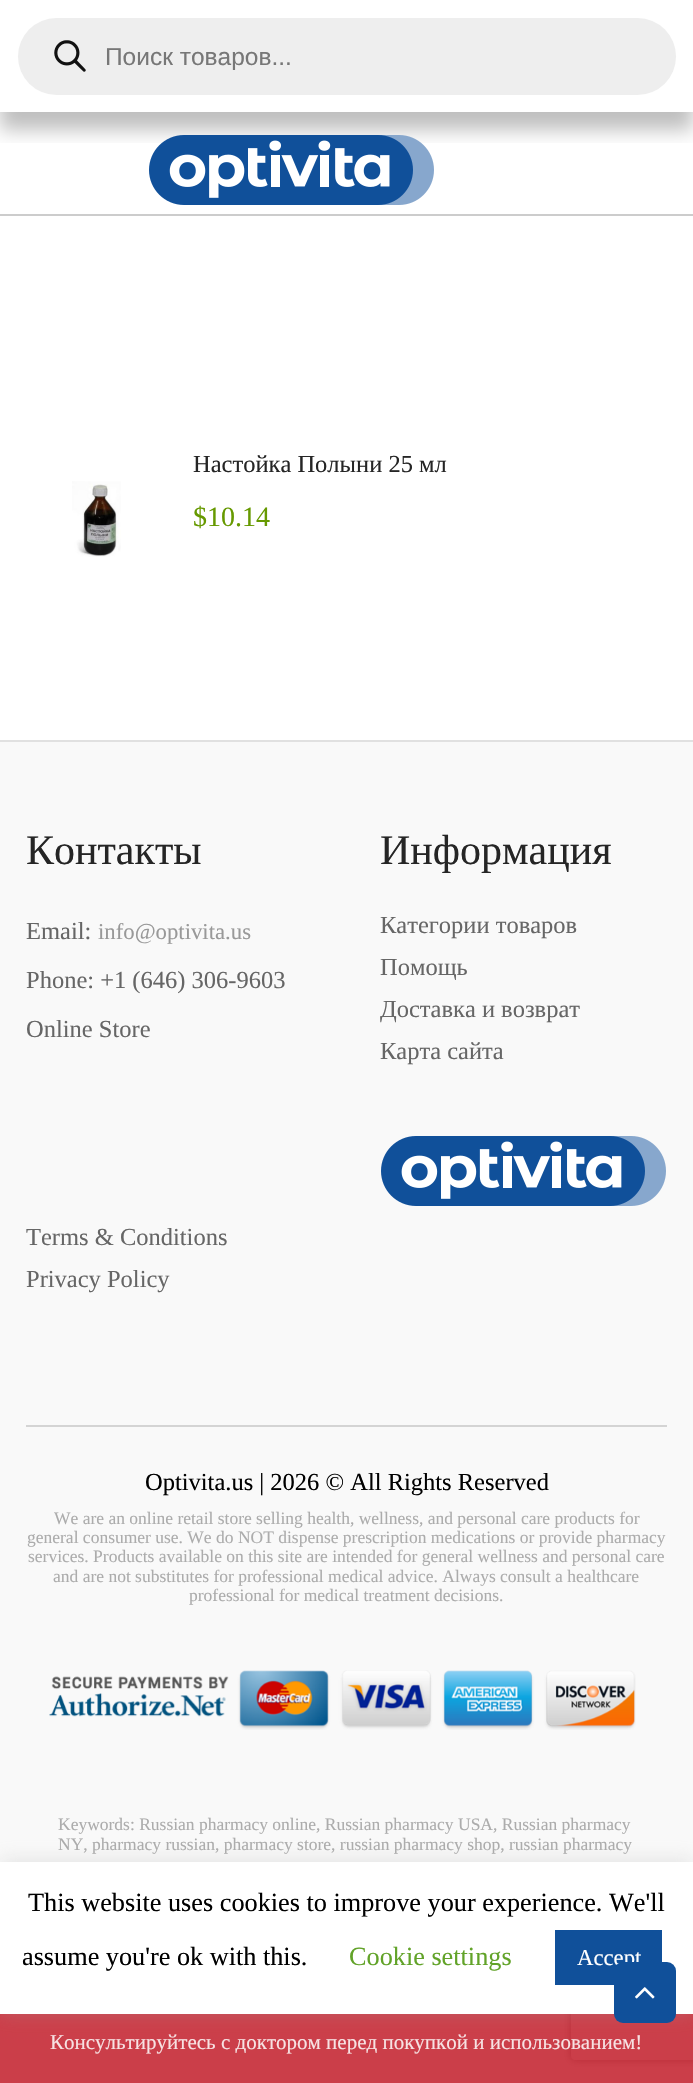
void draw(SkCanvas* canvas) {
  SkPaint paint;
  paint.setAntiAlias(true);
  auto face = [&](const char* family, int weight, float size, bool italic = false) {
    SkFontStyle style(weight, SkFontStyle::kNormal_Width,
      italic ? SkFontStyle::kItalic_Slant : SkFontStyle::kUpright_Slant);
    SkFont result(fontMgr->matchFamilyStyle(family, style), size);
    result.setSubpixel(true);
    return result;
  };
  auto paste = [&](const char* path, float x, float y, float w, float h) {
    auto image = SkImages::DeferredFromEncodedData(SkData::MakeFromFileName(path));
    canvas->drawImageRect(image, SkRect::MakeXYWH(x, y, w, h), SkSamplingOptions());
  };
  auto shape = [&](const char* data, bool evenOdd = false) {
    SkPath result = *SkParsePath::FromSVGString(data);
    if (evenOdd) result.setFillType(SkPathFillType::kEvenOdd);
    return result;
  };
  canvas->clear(0xffffffff);
  paint.setColor(0xffcccccc);
  canvas->drawRect(SkRect::MakeXYWH(0, 214, 693, 2), paint);
  canvas->save();
  canvas->clipRect(SkRect::MakeXYWH(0, 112, 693, 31));
  paint.setColor(0x40000000);
  paint.setMaskFilter(SkMaskFilter::MakeBlur(kNormal_SkBlurStyle, 9));
  canvas->drawRect(SkRect::MakeXYWH(0, 18, 693, 112), paint);
  paint.setMaskFilter(nullptr);
  canvas->restore();
  paint.setColor(0xffeeeeee);
  canvas->drawRoundRect(SkRect::MakeXYWH(18, 18, 658, 77), 38.5f, 38.5f, paint);
  paste("img/1.png", 54, 40, 32, 32);
  paste("img/2.png", 149, 135, 285, 70);
  paste("img/3.png", 72, 481, 49, 76);
  paint.setColor(0xfff9f9f9);
  canvas->drawRect(SkRect::MakeXYWH(0, 742, 693, 1120), paint);
  paint.setColor(0xffe1e1e1);
  canvas->drawRect(SkRect::MakeXYWH(0, 740, 693, 2), paint);
  paste("img/4.png", 381, 1136, 285, 70);
  paint.setColor(0xffd4d4d4);
  canvas->drawRect(SkRect::MakeXYWH(26, 1425, 641, 2), paint);
  paste("img/5.png", 49, 1670, 587, 60);
  canvas->save();
  canvas->clipPath(shape("M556 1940H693V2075H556ZM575 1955H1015C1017 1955 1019 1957 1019 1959V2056C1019 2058 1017 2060 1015 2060H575C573 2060 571 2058 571 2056V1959C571 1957 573 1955 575 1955Z", true), true);
  paint.setColor(0xff808080);
  paint.setMaskFilter(SkMaskFilter::MakeBlur(kNormal_SkBlurStyle, 4.5f));
  canvas->drawRoundRect(SkRect::MakeXYWH(571, 1955, 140, 105), 4, 4, paint);
  paint.setMaskFilter(nullptr);
  canvas->restore();
  paint.setColor(0xd9c21c29);
  canvas->drawRect(SkRect::MakeXYWH(0, 2014, 693, 69), paint);
  paint.setColor(0x4dacabab);
  paint.setMaskFilter(SkMaskFilter::MakeBlur(kNormal_SkBlurStyle, 9));
  canvas->drawRect(SkRect::MakeXYWH(0, 1860, 693, 153), paint);
  paint.setMaskFilter(nullptr);
  paint.setColor(0xffffffff);
  canvas->drawRect(SkRect::MakeXYWH(0, 1862, 693, 152), paint);
  paint.setColor(0xff10509a);
  canvas->drawRect(SkRect::MakeXYWH(555, 1930, 107, 55), paint);
  auto f0 = face("Liberation Sans", 400, 24.5f);
  paint.setColor(0xff777777);
  canvas->drawString("Поиск товаров...", 105, 65, f0, paint);
  auto f1 = face("Liberation Serif", 400, 24.5f);
  paint.setColor(0xff252525);
  canvas->drawString("Настойка Полыни 25 мл", 193, 472, f1, paint);
  auto f2 = face("Liberation Serif", 400, 28);
  paint.setColor(0xff669900);
  canvas->drawString("$10.14", 193, 526, f2, paint);
  auto f3 = face("Liberation Serif", 400, 42);
  paint.setColor(0xff252525);
  canvas->drawString("Контакты", 26, 864, f3, paint);
  paint.setColor(0xff666666);
  canvas->drawString("Email:", 26, 939, f1, paint);
  auto f4 = face("Liberation Serif", 400, 22.75f);
  paint.setColor(0xff999999);
  canvas->drawString("info@optivita.us", 98, 939, f4, paint);
  paint.setColor(0xff666666);
  canvas->drawString("Phone: +1 (646) 306-9603", 26, 988, f1, paint);
  canvas->drawString("Online Store", 26, 1037, f1, paint);
  paint.setColor(0xff252525);
  canvas->drawString("Информация", 380, 864, f3, paint);
  paint.setColor(0xff666666);
  {
    const struct { const char* s; float x, y; } items[] = {
      {"Категории товаров", 380, 933},
      {"Помощь", 380, 975},
      {"Доставка и возврат", 380, 1017},
      {"Карта сайта", 380, 1059},
      {"Terms & Conditions", 26, 1245},
      {"Privacy Policy", 26, 1287},
    };
    for (auto [s, x, y] : items) {
      canvas->drawString(s, x, y, f1, paint);
    }
  }
  paint.setColor(0xff000000);
  canvas->drawString("Optivita.us | 2026 © All Rights Reserved", 145, 1490, f1, paint);
  auto f5 = face("Liberation Serif", 400, 17.5f);
  paint.setColor(0xffacacac);
  {
    const struct { const char* s; float x, y; } items[] = {
      {"We are an online retail store selling health, wellness, and personal care products for", 54, 1524},
      {"general consumer use. We do NOT dispense prescription medications or provide pharmacy", 27, 1543},
      {"services. Products available on this site are intended for general wellness and personal care", 28, 1562},
      {"and are not substitutes for professional medical advice. Always consult a healthcare", 53, 1582},
      {"professional for medical treatment decisions.", 189, 1601},
      {"Keywords: Russian pharmacy online, Russian pharmacy USA, Russian pharmacy", 58, 1830},
      {"NY, pharmacy russian, pharmacy store, russian pharmacy shop, russian pharmacy", 58, 1850},
    };
    for (auto [s, x, y] : items) {
      canvas->drawString(s, x, y, f5, paint);
    }
  }
  auto f6 = face("Liberation Serif", 400, 21);
  paint.setColor(0xfff7e2e3);
  canvas->drawString("Консультируйтесь с доктором перед покупкой и использованием!", 50, 2049, f6, paint);
  auto f7 = face("Liberation Serif", 400, 26.25f);
  paint.setColor(0xff000000);
  canvas->drawString("This website uses cookies to improve your experience. We'll", 28, 1911, f7, paint);
  canvas->drawString("assume you're ok with this.", 22, 1965, f7, paint);
  paint.setColor(0xff62a329);
  canvas->drawString("Cookie settings", 349, 1965, f7, paint);
  paint.setColor(0xffffffff);
  canvas->drawString("Accept", 577, 1965, f4, paint);
  paint.setColor(0xff10509a);
  canvas->drawRoundRect(SkRect::MakeXYWH(614, 1962, 62, 61), 9, 9, paint);
  paste("img/6.png", 635, 1987, 20, 12);
}
